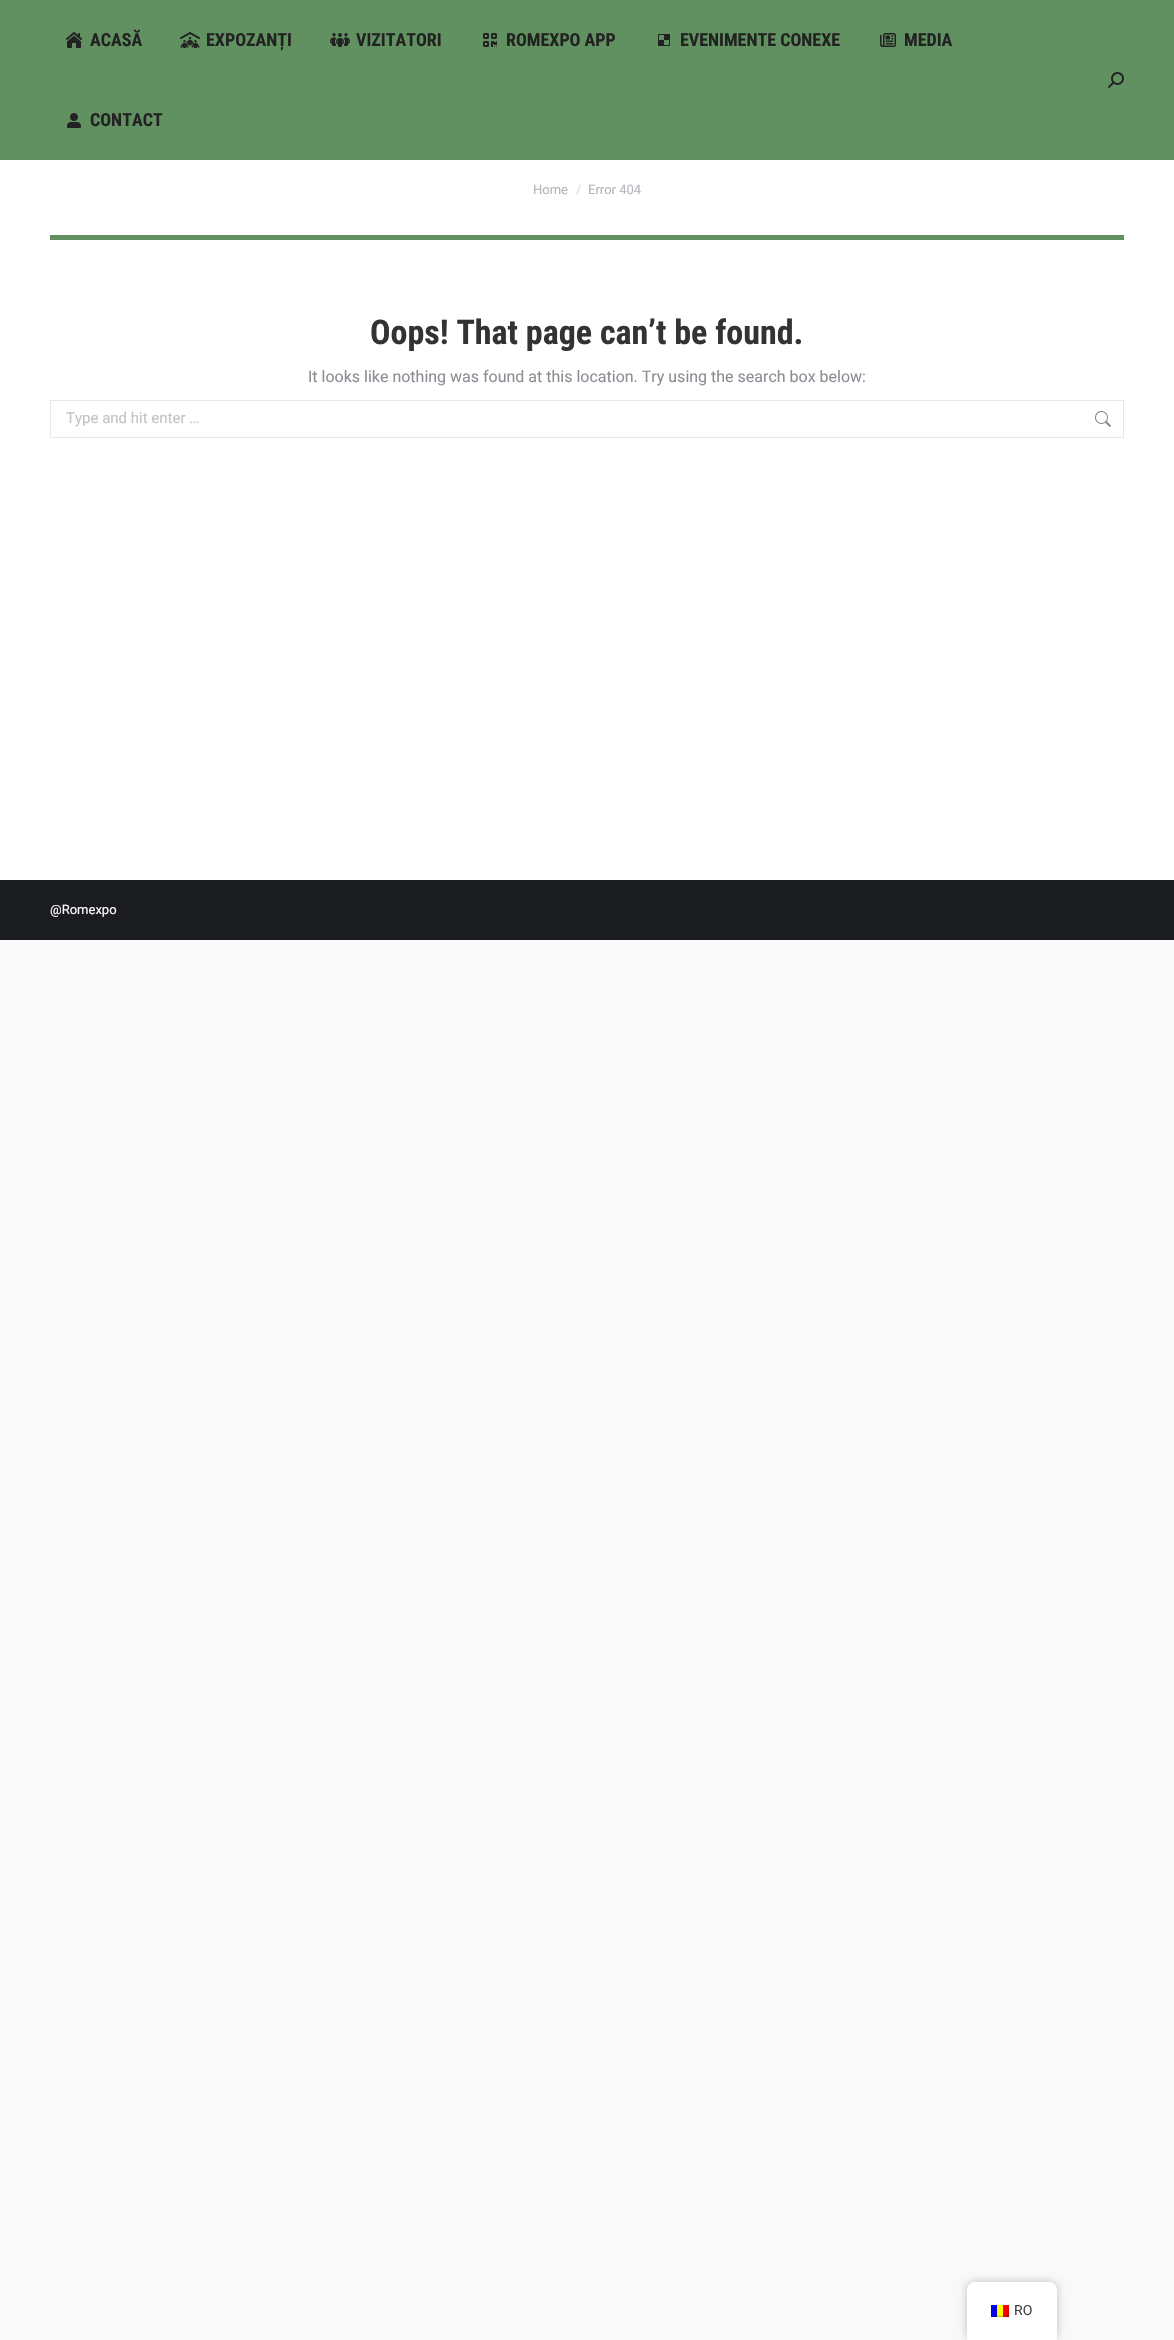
void draw(SkCanvas* canvas) {
  SkPaint paint;
  paint.setAntiAlias(true);
  auto face = [&](const char* family, int weight, float size, bool italic = false) {
    SkFontStyle style(weight, SkFontStyle::kNormal_Width,
      italic ? SkFontStyle::kItalic_Slant : SkFontStyle::kUpright_Slant);
    SkFont result(fontMgr->matchFamilyStyle(family, style), size);
    result.setSubpixel(true);
    return result;
  };
  auto paste = [&](const char* path, float x, float y, float w, float h) {
    auto image = SkImages::DeferredFromEncodedData(SkData::MakeFromFileName(path));
    canvas->drawImageRect(image, SkRect::MakeXYWH(x, y, w, h), SkSamplingOptions());
  };
  auto shape = [&](const char* data, bool evenOdd = false) {
    SkPath result = *SkParsePath::FromSVGString(data);
    if (evenOdd) result.setFillType(SkPathFillType::kEvenOdd);
    return result;
  };
  canvas->clear(0xfff9f9f9);
  paint.setColor(0xffffffff);
  canvas->drawRect(SkRect::MakeXYWH(0, 160, 1174, 720), paint);
  paint.setColor(0xff619160);
  canvas->drawRect(SkRect::MakeXYWH(0, 0, 1174, 160), paint);
  paste("img/1.png", 66, 32, 16, 16);
  paste("img/2.png", 180, 32, 20, 16);
  paste("img/3.png", 330, 33, 20, 14);
  paste("img/4.png", 483, 33, 14, 14);
  paste("img/5.png", 658, 34, 12, 12);
  paste("img/6.png", 880, 33, 16, 14);
  paste("img/7.png", 67, 113, 14, 15);
  paste("img/8.png", 1108, 72, 16, 16);
  canvas->drawRect(SkRect::MakeXYWH(50, 235, 1074, 5), paint);
  paint.setStroke(true);
  paint.setStrokeWidth(1);
  paint.setColor(0xffe7e7e7);
  canvas->drawRect(SkRect::MakeXYWH(50.5f, 400.5f, 1073, 37), paint);
  paste("img/9.png", 1095, 411, 16, 16);
  paint.setStroke(false);
  paint.setColor(0xff1a1c20);
  canvas->drawRect(SkRect::MakeXYWH(0, 880, 1174, 60), paint);
  paint.setColor(0x40000000);
  paint.setMaskFilter(SkMaskFilter::MakeBlur(kNormal_SkBlurStyle, 4));
  canvas->drawRoundRect(SkRect::MakeXYWH(967, 2282, 90, 58), 8, 8, paint);
  paint.setMaskFilter(nullptr);
  paint.setColor(0xffffffff);
  canvas->drawPath(shape("M975 2282H1049C1053.5 2282 1057 2285.5 1057 2290V2340H967V2290C967 2285.5 970.5 2282 975 2282Z"), paint);
  paste("img/10.png", 991, 2305, 18, 12);
  auto f0 = face("Roboto Condensed", 700, 18);
  paint.setColor(0xff222222);
  {
    const struct { const char* s; float x, y; } items[] = {
      {"ACASĂ", 90, 46},
      {"EXPOZANȚI", 206, 46},
      {"VIZITATORI", 356, 46},
      {"ROMEXPO APP", 506, 46},
      {"EVENIMENTE CONEXE", 680, 46},
      {"MEDIA", 904, 46},
      {"CONTACT", 90, 126},
    };
    for (auto [s, x, y] : items) {
      canvas->drawString(s, x, y, f0, paint);
    }
  }
  auto f1 = face("Roboto", 400, 13);
  paint.setColor(0xffb4b5bb);
  canvas->drawString("Home", 533, 194, f1, paint);
  paint.setColor(0xffdadadd);
  canvas->drawString("/", 576, 194, f1, paint);
  paint.setColor(0xffb4b5bb);
  canvas->drawString("Error 404", 588, 194, f1, paint);
  auto f2 = face("Roboto Condensed", 700, 34);
  paint.setColor(0xff333333);
  canvas->drawString("Oops! That page can’t be found.", 370, 344, f2, paint);
  auto f3 = face("Roboto", 400, 16);
  paint.setColor(0xff8b8d94);
  canvas->drawString("It looks like nothing was found at this location. Try using the search box below:", 308, 382, f3, paint);
  auto f4 = face("Roboto", 400, 15);
  paint.setColor(0xffc2c3c6);
  canvas->drawString("Type and hit enter …", 66, 423, f4, paint);
  paint.setColor(0xffffffff);
  canvas->drawString("@Romexpo", 50, 914, f1, paint);
  auto f5 = face("Roboto", 400, 14);
  paint.setColor(0xff404040);
  canvas->drawString("RO", 1014, 2315, f5, paint);
}
